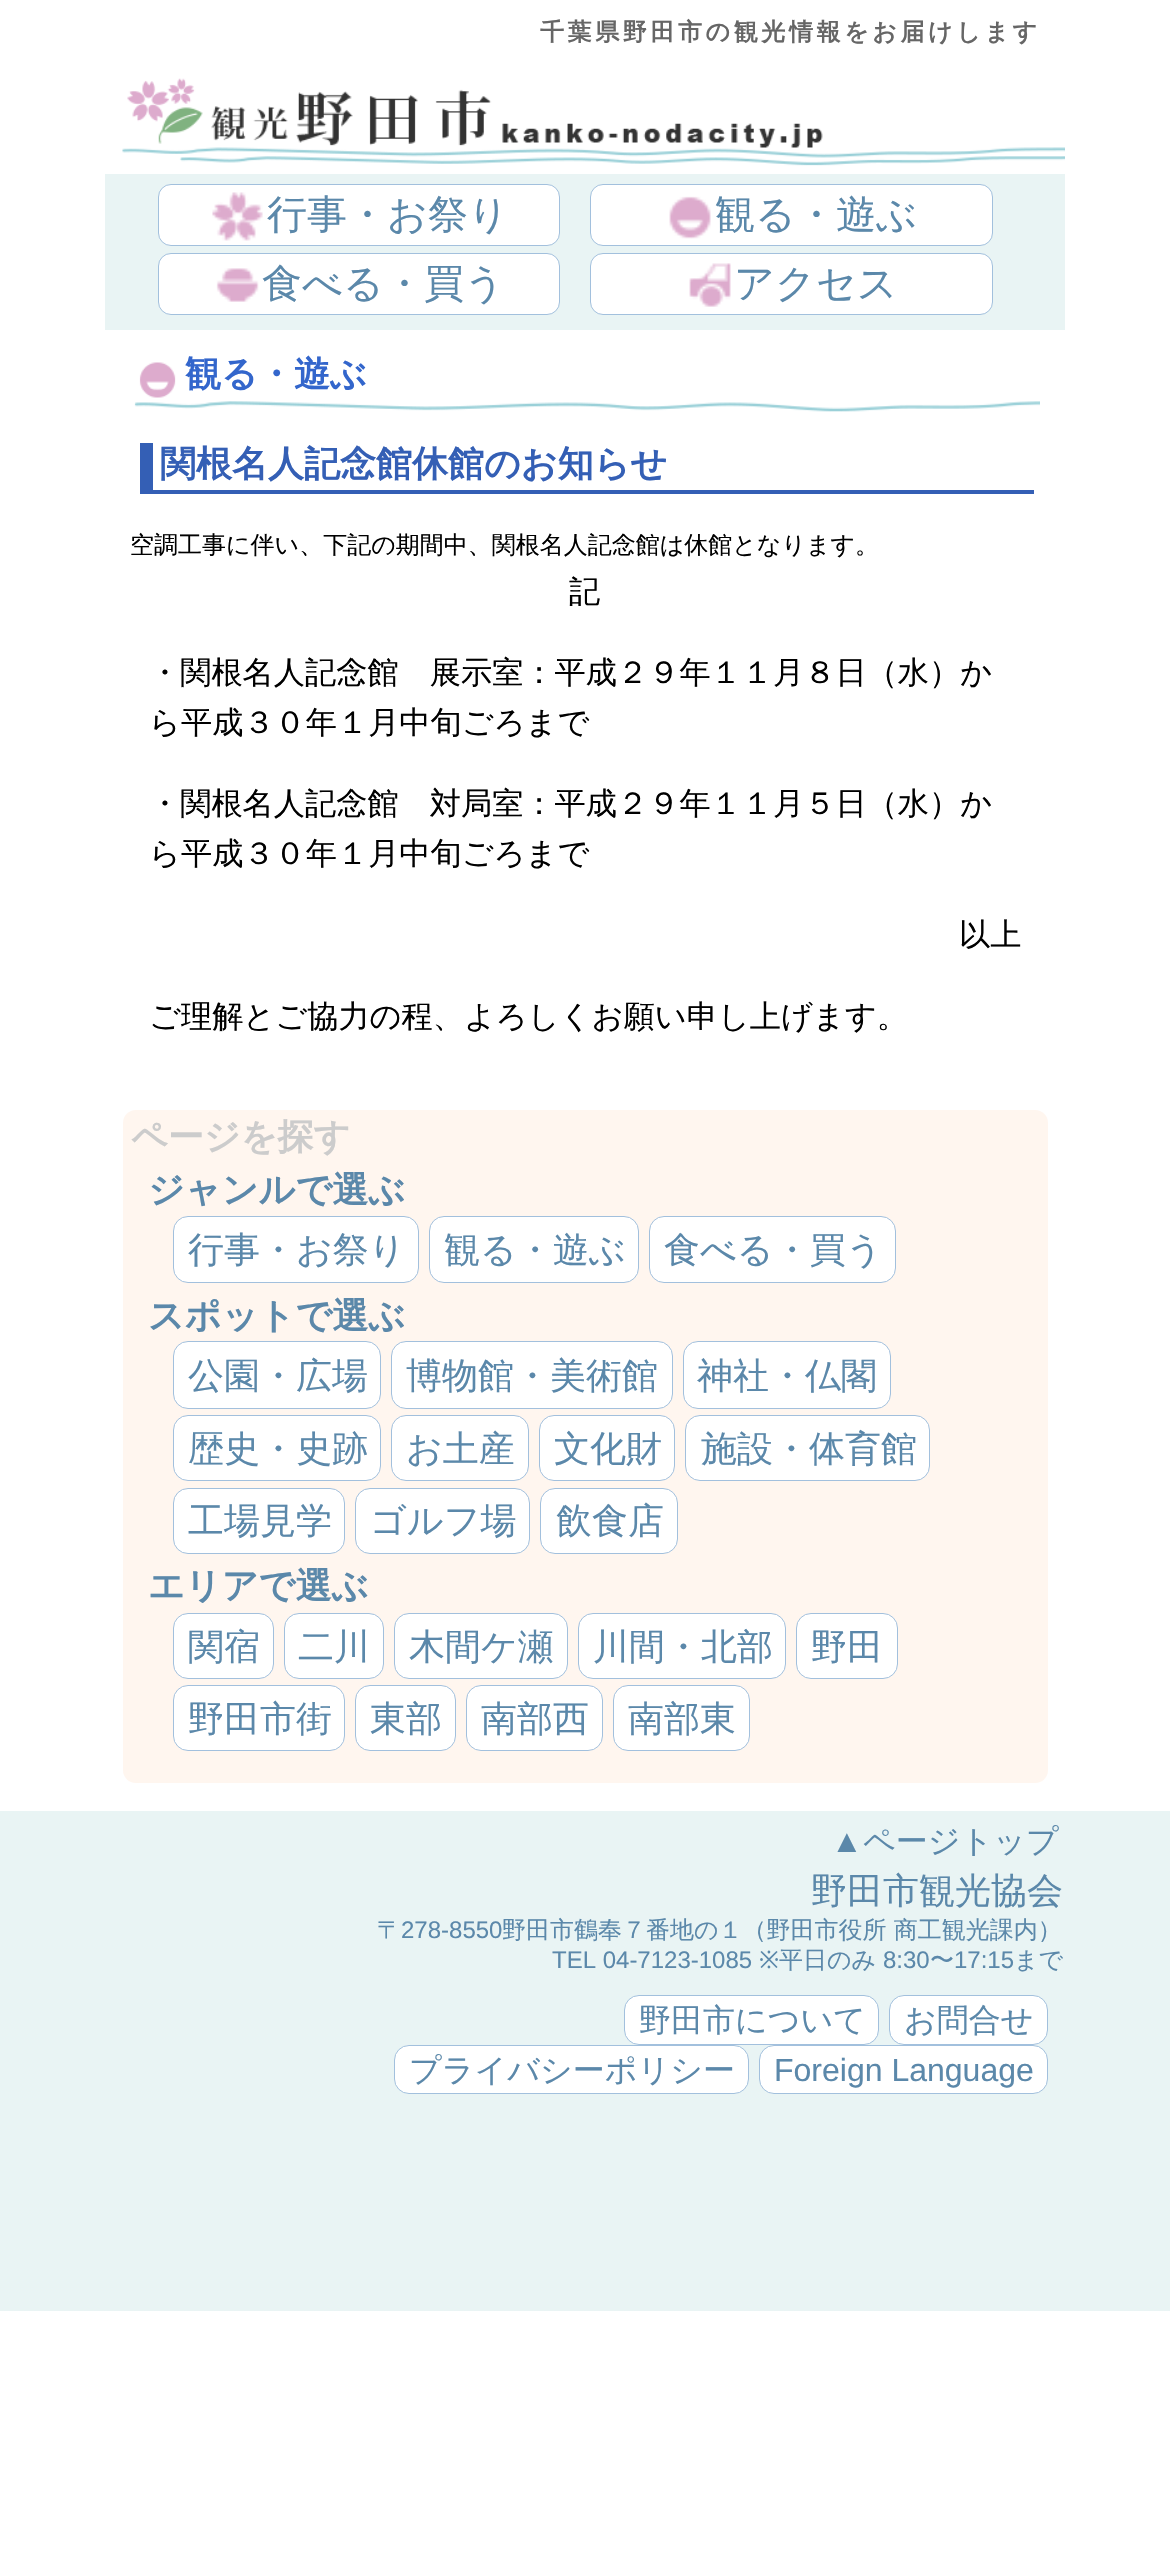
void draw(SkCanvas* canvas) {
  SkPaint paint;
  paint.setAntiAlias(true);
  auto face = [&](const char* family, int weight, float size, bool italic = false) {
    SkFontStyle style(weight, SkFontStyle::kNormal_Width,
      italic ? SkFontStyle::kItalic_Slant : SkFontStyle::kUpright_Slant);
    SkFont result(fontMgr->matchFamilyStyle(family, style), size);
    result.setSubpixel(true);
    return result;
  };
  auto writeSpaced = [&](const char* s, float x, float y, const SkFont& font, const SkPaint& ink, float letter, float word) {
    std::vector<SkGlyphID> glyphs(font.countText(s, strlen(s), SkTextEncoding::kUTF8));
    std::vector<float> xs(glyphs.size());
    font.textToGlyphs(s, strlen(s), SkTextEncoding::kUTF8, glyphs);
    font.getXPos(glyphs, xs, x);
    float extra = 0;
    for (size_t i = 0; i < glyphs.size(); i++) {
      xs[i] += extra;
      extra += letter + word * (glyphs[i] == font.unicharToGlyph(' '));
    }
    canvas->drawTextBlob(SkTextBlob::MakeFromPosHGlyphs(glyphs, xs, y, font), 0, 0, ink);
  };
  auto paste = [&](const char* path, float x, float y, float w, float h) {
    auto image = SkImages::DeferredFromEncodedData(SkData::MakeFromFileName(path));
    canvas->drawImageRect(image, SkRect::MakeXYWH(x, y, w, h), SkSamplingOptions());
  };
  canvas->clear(0xffffffff);
  paste("img/1.png", 122, 147, 943, 19);
  paste("img/2.png", 127, 78, 696, 70);
  paint.setColor(0xffe9f4f4);
  canvas->drawRect(SkRect::MakeXYWH(105, 174, 960, 156), paint);
  paint.setColor(0xffffffff);
  canvas->drawRoundRect(SkRect::MakeXYWH(158.5f, 184.5f, 401, 61), 12.5f, 12.5f, paint);
  paint.setStroke(true);
  paint.setStrokeWidth(1);
  paint.setColor(0xffa2c0dd);
  canvas->drawRoundRect(SkRect::MakeXYWH(158.5f, 184.5f, 401, 61), 12.5f, 12.5f, paint);
  paste("img/3.png", 212, 192, 51, 49);
  paint.setStroke(false);
  paint.setColor(0xffffffff);
  canvas->drawRoundRect(SkRect::MakeXYWH(590.5f, 184.5f, 402, 61), 12.5f, 12.5f, paint);
  paint.setStroke(true);
  paint.setColor(0xffa2c0dd);
  canvas->drawRoundRect(SkRect::MakeXYWH(590.5f, 184.5f, 402, 61), 12.5f, 12.5f, paint);
  paste("img/4.png", 669, 196, 42, 43);
  paint.setStroke(false);
  paint.setColor(0xffffffff);
  canvas->drawRoundRect(SkRect::MakeXYWH(158.5f, 253.5f, 401, 61), 12.5f, 12.5f, paint);
  paint.setStroke(true);
  paint.setColor(0xffa2c0dd);
  canvas->drawRoundRect(SkRect::MakeXYWH(158.5f, 253.5f, 401, 61), 12.5f, 12.5f, paint);
  paste("img/5.png", 216, 268, 43, 34);
  paint.setStroke(false);
  paint.setColor(0xffffffff);
  canvas->drawRoundRect(SkRect::MakeXYWH(590.5f, 253.5f, 402, 61), 12.5f, 12.5f, paint);
  paint.setStroke(true);
  paint.setColor(0xffa2c0dd);
  canvas->drawRoundRect(SkRect::MakeXYWH(590.5f, 253.5f, 402, 61), 12.5f, 12.5f, paint);
  paste("img/6.png", 689, 263, 42, 44);
  paste("img/7.png", 134, 362, 906, 50);
  paint.setStroke(false);
  paint.setColor(0xff345fb5);
  canvas->drawRect(SkRect::MakeXYWH(153, 490, 881, 4), paint);
  canvas->drawRect(SkRect::MakeXYWH(140, 443, 13, 51), paint);
  paint.setColor(0xfffff6ef);
  canvas->drawRoundRect(SkRect::MakeXYWH(123, 1110, 925, 673), 13, 13, paint);
  paint.setColor(0xffffffff);
  canvas->drawRoundRect(SkRect::MakeXYWH(173.5f, 1216.5f, 245, 66), 14.5f, 14.5f, paint);
  paint.setStroke(true);
  paint.setColor(0xffa2c0dd);
  canvas->drawRoundRect(SkRect::MakeXYWH(173.5f, 1216.5f, 245, 66), 14.5f, 14.5f, paint);
  paint.setStroke(false);
  paint.setColor(0xffffffff);
  canvas->drawRoundRect(SkRect::MakeXYWH(429.5f, 1216.5f, 209, 66), 14.5f, 14.5f, paint);
  paint.setStroke(true);
  paint.setColor(0xffa2c0dd);
  canvas->drawRoundRect(SkRect::MakeXYWH(429.5f, 1216.5f, 209, 66), 14.5f, 14.5f, paint);
  paint.setStroke(false);
  paint.setColor(0xffffffff);
  canvas->drawRoundRect(SkRect::MakeXYWH(649.5f, 1216.5f, 246, 66), 14.5f, 14.5f, paint);
  paint.setStroke(true);
  paint.setColor(0xffa2c0dd);
  canvas->drawRoundRect(SkRect::MakeXYWH(649.5f, 1216.5f, 246, 66), 14.5f, 14.5f, paint);
  paint.setStroke(false);
  paint.setColor(0xffffffff);
  canvas->drawRoundRect(SkRect::MakeXYWH(173.5f, 1341.5f, 207, 67), 14.5f, 14.5f, paint);
  paint.setStroke(true);
  paint.setColor(0xffa2c0dd);
  canvas->drawRoundRect(SkRect::MakeXYWH(173.5f, 1341.5f, 207, 67), 14.5f, 14.5f, paint);
  paint.setStroke(false);
  paint.setColor(0xffffffff);
  canvas->drawRoundRect(SkRect::MakeXYWH(391.5f, 1341.5f, 281, 67), 14.5f, 14.5f, paint);
  paint.setStroke(true);
  paint.setColor(0xffa2c0dd);
  canvas->drawRoundRect(SkRect::MakeXYWH(391.5f, 1341.5f, 281, 67), 14.5f, 14.5f, paint);
  paint.setStroke(false);
  paint.setColor(0xffffffff);
  canvas->drawRoundRect(SkRect::MakeXYWH(683.5f, 1341.5f, 207, 67), 14.5f, 14.5f, paint);
  paint.setStroke(true);
  paint.setColor(0xffa2c0dd);
  canvas->drawRoundRect(SkRect::MakeXYWH(683.5f, 1341.5f, 207, 67), 14.5f, 14.5f, paint);
  paint.setStroke(false);
  paint.setColor(0xffffffff);
  canvas->drawRoundRect(SkRect::MakeXYWH(173.5f, 1415.5f, 207, 65), 14.5f, 14.5f, paint);
  paint.setStroke(true);
  paint.setColor(0xffa2c0dd);
  canvas->drawRoundRect(SkRect::MakeXYWH(173.5f, 1415.5f, 207, 65), 14.5f, 14.5f, paint);
  paint.setStroke(false);
  paint.setColor(0xffffffff);
  canvas->drawRoundRect(SkRect::MakeXYWH(391.5f, 1415.5f, 137, 65), 14.5f, 14.5f, paint);
  paint.setStroke(true);
  paint.setColor(0xffa2c0dd);
  canvas->drawRoundRect(SkRect::MakeXYWH(391.5f, 1415.5f, 137, 65), 14.5f, 14.5f, paint);
  paint.setStroke(false);
  paint.setColor(0xffffffff);
  canvas->drawRoundRect(SkRect::MakeXYWH(539.5f, 1415.5f, 135, 65), 14.5f, 14.5f, paint);
  paint.setStroke(true);
  paint.setColor(0xffa2c0dd);
  canvas->drawRoundRect(SkRect::MakeXYWH(539.5f, 1415.5f, 135, 65), 14.5f, 14.5f, paint);
  paint.setStroke(false);
  paint.setColor(0xffffffff);
  canvas->drawRoundRect(SkRect::MakeXYWH(685.5f, 1415.5f, 244, 65), 14.5f, 14.5f, paint);
  paint.setStroke(true);
  paint.setColor(0xffa2c0dd);
  canvas->drawRoundRect(SkRect::MakeXYWH(685.5f, 1415.5f, 244, 65), 14.5f, 14.5f, paint);
  paint.setStroke(false);
  paint.setColor(0xffffffff);
  canvas->drawRoundRect(SkRect::MakeXYWH(173.5f, 1488.5f, 171, 65), 14.5f, 14.5f, paint);
  paint.setStroke(true);
  paint.setColor(0xffa2c0dd);
  canvas->drawRoundRect(SkRect::MakeXYWH(173.5f, 1488.5f, 171, 65), 14.5f, 14.5f, paint);
  paint.setStroke(false);
  paint.setColor(0xffffffff);
  canvas->drawRoundRect(SkRect::MakeXYWH(355.5f, 1488.5f, 174, 65), 14.5f, 14.5f, paint);
  paint.setStroke(true);
  paint.setColor(0xffa2c0dd);
  canvas->drawRoundRect(SkRect::MakeXYWH(355.5f, 1488.5f, 174, 65), 14.5f, 14.5f, paint);
  paint.setStroke(false);
  paint.setColor(0xffffffff);
  canvas->drawRoundRect(SkRect::MakeXYWH(540.5f, 1488.5f, 137, 65), 14.5f, 14.5f, paint);
  paint.setStroke(true);
  paint.setColor(0xffa2c0dd);
  canvas->drawRoundRect(SkRect::MakeXYWH(540.5f, 1488.5f, 137, 65), 14.5f, 14.5f, paint);
  paint.setStroke(false);
  paint.setColor(0xffffffff);
  canvas->drawRoundRect(SkRect::MakeXYWH(173.5f, 1613.5f, 100, 65), 14.5f, 14.5f, paint);
  paint.setStroke(true);
  paint.setColor(0xffa2c0dd);
  canvas->drawRoundRect(SkRect::MakeXYWH(173.5f, 1613.5f, 100, 65), 14.5f, 14.5f, paint);
  paint.setStroke(false);
  paint.setColor(0xffffffff);
  canvas->drawRoundRect(SkRect::MakeXYWH(284.5f, 1613.5f, 99, 65), 14.5f, 14.5f, paint);
  paint.setStroke(true);
  paint.setColor(0xffa2c0dd);
  canvas->drawRoundRect(SkRect::MakeXYWH(284.5f, 1613.5f, 99, 65), 14.5f, 14.5f, paint);
  paint.setStroke(false);
  paint.setColor(0xffffffff);
  canvas->drawRoundRect(SkRect::MakeXYWH(394.5f, 1613.5f, 173, 65), 14.5f, 14.5f, paint);
  paint.setStroke(true);
  paint.setColor(0xffa2c0dd);
  canvas->drawRoundRect(SkRect::MakeXYWH(394.5f, 1613.5f, 173, 65), 14.5f, 14.5f, paint);
  paint.setStroke(false);
  paint.setColor(0xffffffff);
  canvas->drawRoundRect(SkRect::MakeXYWH(578.5f, 1613.5f, 207, 65), 14.5f, 14.5f, paint);
  paint.setStroke(true);
  paint.setColor(0xffa2c0dd);
  canvas->drawRoundRect(SkRect::MakeXYWH(578.5f, 1613.5f, 207, 65), 14.5f, 14.5f, paint);
  paint.setStroke(false);
  paint.setColor(0xffffffff);
  canvas->drawRoundRect(SkRect::MakeXYWH(796.5f, 1613.5f, 101, 65), 14.5f, 14.5f, paint);
  paint.setStroke(true);
  paint.setColor(0xffa2c0dd);
  canvas->drawRoundRect(SkRect::MakeXYWH(796.5f, 1613.5f, 101, 65), 14.5f, 14.5f, paint);
  paint.setStroke(false);
  paint.setColor(0xffffffff);
  canvas->drawRoundRect(SkRect::MakeXYWH(173.5f, 1685.5f, 171, 65), 14.5f, 14.5f, paint);
  paint.setStroke(true);
  paint.setColor(0xffa2c0dd);
  canvas->drawRoundRect(SkRect::MakeXYWH(173.5f, 1685.5f, 171, 65), 14.5f, 14.5f, paint);
  paint.setStroke(false);
  paint.setColor(0xffffffff);
  canvas->drawRoundRect(SkRect::MakeXYWH(355.5f, 1685.5f, 100, 65), 14.5f, 14.5f, paint);
  paint.setStroke(true);
  paint.setColor(0xffa2c0dd);
  canvas->drawRoundRect(SkRect::MakeXYWH(355.5f, 1685.5f, 100, 65), 14.5f, 14.5f, paint);
  paint.setStroke(false);
  paint.setColor(0xffffffff);
  canvas->drawRoundRect(SkRect::MakeXYWH(466.5f, 1685.5f, 136, 65), 14.5f, 14.5f, paint);
  paint.setStroke(true);
  paint.setColor(0xffa2c0dd);
  canvas->drawRoundRect(SkRect::MakeXYWH(466.5f, 1685.5f, 136, 65), 14.5f, 14.5f, paint);
  paint.setStroke(false);
  paint.setColor(0xffffffff);
  canvas->drawRoundRect(SkRect::MakeXYWH(613.5f, 1685.5f, 136, 65), 14.5f, 14.5f, paint);
  paint.setStroke(true);
  paint.setColor(0xffa2c0dd);
  canvas->drawRoundRect(SkRect::MakeXYWH(613.5f, 1685.5f, 136, 65), 14.5f, 14.5f, paint);
  paint.setStroke(false);
  paint.setColor(0xffe9f4f4);
  canvas->drawRect(SkRect::MakeXYWH(0, 1811, 1170, 500), paint);
  paint.setColor(0xffffffff);
  canvas->drawRoundRect(SkRect::MakeXYWH(624.5f, 1995.5f, 254, 49), 14.5f, 14.5f, paint);
  paint.setStroke(true);
  paint.setColor(0xffa2c0dd);
  canvas->drawRoundRect(SkRect::MakeXYWH(624.5f, 1995.5f, 254, 49), 14.5f, 14.5f, paint);
  paint.setStroke(false);
  paint.setColor(0xffffffff);
  canvas->drawRoundRect(SkRect::MakeXYWH(889.5f, 1995.5f, 158, 49), 14.5f, 14.5f, paint);
  paint.setStroke(true);
  paint.setColor(0xffa2c0dd);
  canvas->drawRoundRect(SkRect::MakeXYWH(889.5f, 1995.5f, 158, 49), 14.5f, 14.5f, paint);
  paint.setStroke(false);
  paint.setColor(0xffffffff);
  canvas->drawRoundRect(SkRect::MakeXYWH(394.5f, 2045.5f, 354, 48), 14.5f, 14.5f, paint);
  paint.setStroke(true);
  paint.setColor(0xffa2c0dd);
  canvas->drawRoundRect(SkRect::MakeXYWH(394.5f, 2045.5f, 354, 48), 14.5f, 14.5f, paint);
  paint.setStroke(false);
  paint.setColor(0xffffffff);
  canvas->drawRoundRect(SkRect::MakeXYWH(759.5f, 2045.5f, 288, 48), 14.5f, 14.5f, paint);
  paint.setStroke(true);
  paint.setColor(0xffa2c0dd);
  canvas->drawRoundRect(SkRect::MakeXYWH(759.5f, 2045.5f, 288, 48), 14.5f, 14.5f, paint);
  auto f0 = face("WenQuanYi Zen Hei", 700, 24);
  paint.setStroke(false);
  paint.setColor(0xff666666);
  writeSpaced("千葉県野田市の観光情報をお届けします", 540, 40, f0, paint, 3.6f, 0);
  auto f1 = face("WenQuanYi Zen Hei", 500, 40);
  paint.setColor(0xff5b88aa);
  {
    const struct { const char* s; float x, y; } items[] = {
      {"行事・お祭り", 267, 228},
      {"観る・遊ぶ", 715, 228},
      {"食べる・買う", 262, 297},
      {"アクセス", 734, 297},
    };
    for (auto [s, x, y] : items) {
      canvas->drawString(s, x, y, f1, paint);
    }
  }
  auto f2 = face("WenQuanYi Zen Hei", 700, 36);
  paint.setColor(0xff3366cc);
  canvas->drawString("観る・遊ぶ", 185, 386, f2, paint);
  paint.setColor(0xff345fb5);
  canvas->drawString("関根名人記念館休館のお知らせ", 160, 476, f2, paint);
  auto f3 = face("WenQuanYi Zen Hei", 500, 24);
  paint.setColor(0xff000000);
  canvas->drawString("空調工事に伴い、下記の期間中、関根名人記念館は休館となります。", 130, 553, f3, paint);
  auto f4 = face("WenQuanYi Zen Hei", 500, 31.2f);
  {
    const struct { const char* s; float x, y; } items[] = {
      {"記", 569, 602},
      {"・関根名人記念館　展示室：平成２９年１１月８日（水）か", 149, 683},
      {"ら平成３０年１月中旬ごろまで", 149, 733},
      {"・関根名人記念館　対局室：平成２９年１１月５日（水）か", 149, 814},
      {"ら平成３０年１月中旬ごろまで", 149, 864},
      {"以上", 959, 945},
      {"ご理解とご協力の程、よろしくお願い申し上げます。", 149, 1027},
    };
    for (auto [s, x, y] : items) {
      canvas->drawString(s, x, y, f4, paint);
    }
  }
  paint.setColor(0xffcccccc);
  canvas->drawString("ページを探す", 131, 1149, f2, paint);
  paint.setColor(0xff5b88aa);
  canvas->drawString("ジャンルで選ぶ", 148, 1202, f2, paint);
  auto f5 = face("WenQuanYi Zen Hei", 500, 36);
  {
    const struct { const char* s; float x, y; } items[] = {
      {"行事・お祭り", 188, 1262},
      {"観る・遊ぶ", 444, 1262},
      {"食べる・買う", 664, 1262},
    };
    for (auto [s, x, y] : items) {
      canvas->drawString(s, x, y, f5, paint);
    }
  }
  canvas->drawString("スポットで選ぶ", 148, 1328, f2, paint);
  {
    const struct { const char* s; float x, y; } items[] = {
      {"公園・広場", 188, 1388},
      {"博物館・美術館", 406, 1388},
      {"神社・仏閣", 697, 1388},
      {"歴史・史跡", 188, 1461},
      {"お土産", 406, 1461},
      {"文化財", 554, 1461},
      {"施設・体育館", 701, 1461},
      {"工場見学", 188, 1533},
      {"ゴルフ場", 370, 1533},
      {"飲食店", 556, 1533},
    };
    for (auto [s, x, y] : items) {
      canvas->drawString(s, x, y, f5, paint);
    }
  }
  canvas->drawString("エリアで選ぶ", 148, 1598, f2, paint);
  {
    const struct { const char* s; float x, y; } items[] = {
      {"関宿", 188, 1659},
      {"二川", 298, 1659},
      {"木間ケ瀬", 409, 1659},
      {"川間・北部", 593, 1659},
      {"野田", 811, 1659},
      {"野田市街", 188, 1731},
      {"東部", 370, 1731},
      {"南部西", 481, 1731},
      {"南部東", 628, 1731},
    };
    for (auto [s, x, y] : items) {
      canvas->drawString(s, x, y, f5, paint);
    }
  }
  auto f6 = face("Liberation Sans", 400, 32);
  canvas->drawString("▲", 831, 1852, f6, paint);
  auto f7 = face("WenQuanYi Zen Hei", 500, 32);
  canvas->drawString("ページトップ", 863, 1852, f7, paint);
  canvas->drawString("野田市観光協会", 811, 1903, f5, paint);
  canvas->drawString("〒", 377, 1938, f3, paint);
  auto f8 = face("Liberation Sans", 400, 24);
  canvas->drawString("278-8550", 401, 1938, f8, paint);
  canvas->drawString("野田市鶴奉７番地の１（野田市役所 商工観光課内）", 502, 1938, f3, paint);
  canvas->drawString("TEL 04-7123-1085", 552, 1968, f8, paint);
  auto f9 = face("Noto Sans", 400, 24);
  canvas->drawString("※", 759, 1968, f9, paint);
  canvas->drawString("平日のみ", 779, 1968, f3, paint);
  canvas->drawString("8:30", 883, 1968, f8, paint);
  canvas->drawString("〜", 930, 1968, f3, paint);
  canvas->drawString("17:15", 954, 1968, f8, paint);
  canvas->drawString("まで", 1014, 1968, f3, paint);
  {
    const struct { const char* s; float x, y; } items[] = {
      {"野田市について", 639, 2031},
      {"お問合せ", 904, 2031},
      {"プライバシーポリシー", 409, 2081},
    };
    for (auto [s, x, y] : items) {
      canvas->drawString(s, x, y, f7, paint);
    }
  }
  canvas->drawString("Foreign Language", 774, 2081, f6, paint);
}
